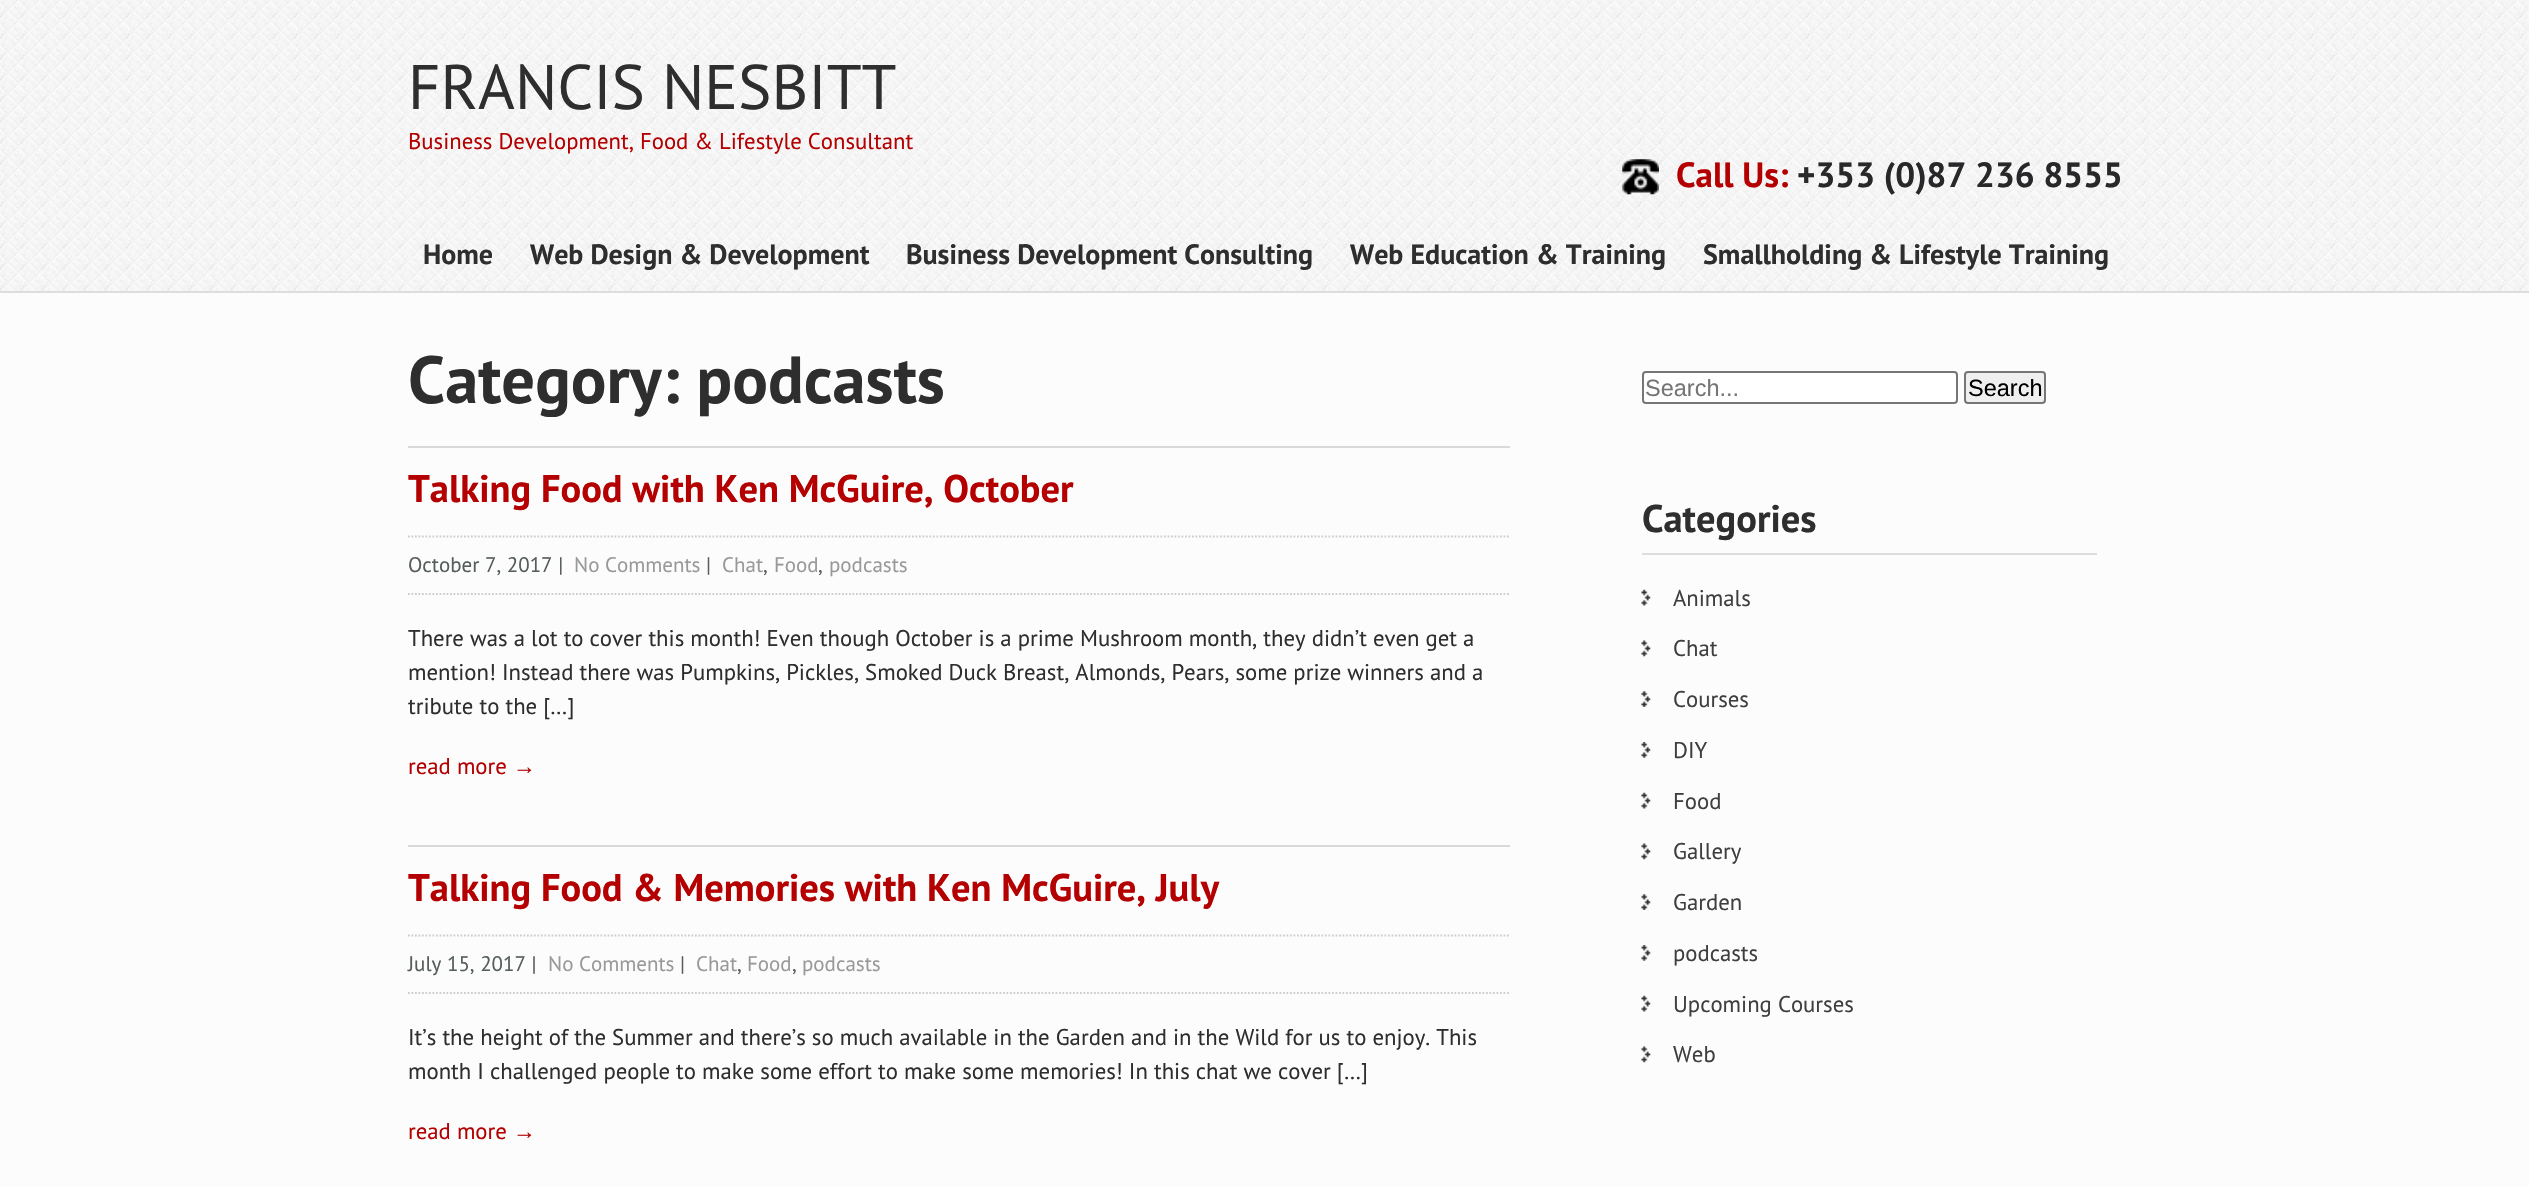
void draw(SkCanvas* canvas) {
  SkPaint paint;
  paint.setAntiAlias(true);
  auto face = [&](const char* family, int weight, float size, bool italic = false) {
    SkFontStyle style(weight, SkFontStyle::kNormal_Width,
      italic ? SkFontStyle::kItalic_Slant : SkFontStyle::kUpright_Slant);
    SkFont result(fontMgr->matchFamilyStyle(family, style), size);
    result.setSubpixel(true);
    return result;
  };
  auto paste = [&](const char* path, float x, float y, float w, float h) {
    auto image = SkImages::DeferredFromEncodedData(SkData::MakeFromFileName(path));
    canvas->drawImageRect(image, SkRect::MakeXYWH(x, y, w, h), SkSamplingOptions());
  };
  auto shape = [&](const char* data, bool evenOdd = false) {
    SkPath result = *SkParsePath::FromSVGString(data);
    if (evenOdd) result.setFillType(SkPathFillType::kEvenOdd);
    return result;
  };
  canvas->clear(0xfffcfcfc);
  paste("img/1.png", 0, 0, 2529, 291);
  paint.setColor(0xffdddddd);
  canvas->drawRect(SkRect::MakeXYWH(0, 291, 2529, 2), paint);
  paste("img/2.png", 1622, 159, 37, 36);
  paint.setColor(0xffd9d9d9);
  canvas->drawRect(SkRect::MakeXYWH(408, 446, 1102, 2), paint);
  paint.setStroke(true);
  paint.setStrokeWidth(1.8f);
  paint.setColor(0xffcdcdcd);
  paint.setPathEffect(SkDashPathEffect::Make({{1.75f, 1.75f}}, 0));
  canvas->drawPath(shape("M408 536.5H1510"), paint);
  paint.setPathEffect(nullptr);
  paint.setPathEffect(SkDashPathEffect::Make({{1.75f, 1.75f}}, 0));
  canvas->drawPath(shape("M408 594H1510"), paint);
  paint.setPathEffect(nullptr);
  paint.setStroke(false);
  paint.setColor(0xffd9d9d9);
  canvas->drawRect(SkRect::MakeXYWH(408, 845, 1102, 2), paint);
  paint.setStroke(true);
  paint.setColor(0xffcdcdcd);
  paint.setPathEffect(SkDashPathEffect::Make({{1.75f, 1.75f}}, 0));
  canvas->drawPath(shape("M408 935.5H1510"), paint);
  paint.setPathEffect(nullptr);
  paint.setPathEffect(SkDashPathEffect::Make({{1.75f, 1.75f}}, 0));
  canvas->drawPath(shape("M408 993H1510"), paint);
  paint.setPathEffect(nullptr);
  paint.setStroke(false);
  paint.setColor(0xffffffff);
  canvas->drawRoundRect(SkRect::MakeXYWH(1643, 372, 314, 31), 3, 3, paint);
  paint.setStroke(true);
  paint.setStrokeWidth(2);
  paint.setColor(0xff767676);
  canvas->drawRoundRect(SkRect::MakeXYWH(1643, 372, 314, 31), 3, 3, paint);
  paint.setStroke(false);
  paint.setColor(0xffefefef);
  canvas->drawRoundRect(SkRect::MakeXYWH(1965, 372, 80, 31), 3, 3, paint);
  paint.setStroke(true);
  paint.setColor(0xff767676);
  canvas->drawRoundRect(SkRect::MakeXYWH(1965, 372, 80, 31), 3, 3, paint);
  paint.setStroke(false);
  paint.setColor(0xffdddddd);
  canvas->drawRect(SkRect::MakeXYWH(1642, 553, 455, 2), paint);
  paste("img/3.png", 1641, 589, 10, 17);
  paste("img/4.png", 1641, 640, 10, 17);
  paste("img/5.png", 1641, 691, 10, 16);
  paste("img/6.png", 1641, 742, 10, 16);
  paste("img/3.png", 1641, 792, 10, 17);
  paste("img/4.png", 1641, 843, 10, 17);
  paste("img/5.png", 1641, 894, 10, 16);
  paste("img/6.png", 1641, 945, 10, 16);
  paste("img/3.png", 1641, 995, 10, 17);
  paste("img/4.png", 1641, 1046, 10, 17);
  auto f0 = face("PT Sans", 400, 63);
  paint.setColor(0xff2e2e2e);
  canvas->drawString("FRANCIS NESBITT", 408, 109, f0, paint);
  auto f1 = face("PT Sans", 400, 22.75f);
  paint.setColor(0xffb40000);
  canvas->drawString("Business Development, Food & Lifestyle Consultant", 408, 149, f1, paint);
  auto f2 = face("PT Sans", 700, 35);
  canvas->drawString("Call Us:", 1676, 187, f2, paint);
  paint.setColor(0xff28282a);
  canvas->drawString("+353 (0)87 236 8555", 1797, 187, f2, paint);
  auto f3 = face("PT Sans", 700, 28);
  paint.setColor(0xff2e2e2e);
  {
    const struct { const char* s; float x, y; } items[] = {
      {"Home", 423, 264},
      {"Web Design & Development", 530, 264},
      {"Business Development Consulting", 906, 264},
      {"Web Education & Training", 1350, 264},
      {"Smallholding & Lifestyle Training", 1703, 264},
    };
    for (auto [s, x, y] : items) {
      canvas->drawString(s, x, y, f3, paint);
    }
  }
  auto f4 = face("PT Sans", 700, 66.5f);
  canvas->drawString("Category: podcasts", 408, 403, f4, paint);
  auto f5 = face("PT Sans", 700, 38.5f);
  paint.setColor(0xffb40000);
  canvas->drawString("Talking Food with Ken McGuire, October", 408, 502, f5, paint);
  auto f6 = face("PT Sans", 400, 21);
  paint.setColor(0xff555e58);
  canvas->drawString("October 7, 2017 |", 408, 572, f6, paint);
  paint.setColor(0xff999999);
  canvas->drawString("No Comments", 574, 572, f6, paint);
  paint.setColor(0xff555e58);
  canvas->drawString("|", 706, 572, f6, paint);
  paint.setColor(0xff999999);
  canvas->drawString("Chat", 722, 572, f6, paint);
  paint.setColor(0xff555e58);
  canvas->drawString(",", 763, 572, f6, paint);
  paint.setColor(0xff999999);
  canvas->drawString("Food", 774, 572, f6, paint);
  paint.setColor(0xff555e58);
  canvas->drawString(",", 818, 572, f6, paint);
  paint.setColor(0xff999999);
  canvas->drawString("podcasts", 829, 572, f6, paint);
  paint.setColor(0xff2e2e2e);
  {
    const struct { const char* s; float x, y; } items[] = {
      {"There was a lot to cover this month! Even though October is a prime Mushroom month, they didn’t even get a", 408, 646},
      {"mention! Instead there was Pumpkins, Pickles, Smoked Duck Breast, Almonds, Pears, some prize winners and a", 408, 680},
      {"tribute to the […]", 408, 714},
    };
    for (auto [s, x, y] : items) {
      canvas->drawString(s, x, y, f1, paint);
    }
  }
  paint.setColor(0xffb40000);
  canvas->drawString("read more", 408, 774, f1, paint);
  auto f7 = face("Liberation Serif", 400, 22.75f);
  canvas->drawString("→", 513, 774, f7, paint);
  canvas->drawString("Talking Food & Memories with Ken McGuire, July", 408, 901, f5, paint);
  paint.setColor(0xff555e58);
  canvas->drawString("July 15, 2017 |", 408, 971, f6, paint);
  paint.setColor(0xff999999);
  canvas->drawString("No Comments", 548, 971, f6, paint);
  paint.setColor(0xff555e58);
  canvas->drawString("|", 680, 971, f6, paint);
  paint.setColor(0xff999999);
  canvas->drawString("Chat", 696, 971, f6, paint);
  paint.setColor(0xff555e58);
  canvas->drawString(",", 737, 971, f6, paint);
  paint.setColor(0xff999999);
  canvas->drawString("Food", 747, 971, f6, paint);
  paint.setColor(0xff555e58);
  canvas->drawString(",", 792, 971, f6, paint);
  paint.setColor(0xff999999);
  canvas->drawString("podcasts", 802, 971, f6, paint);
  paint.setColor(0xff2e2e2e);
  canvas->drawString("It’s the height of the Summer and there’s so much available in the Garden and in the Wild for us to enjoy. This", 408, 1045, f1, paint);
  canvas->drawString("month I challenged people to make some effort to make some memories! In this chat we cover […]", 408, 1079, f1, paint);
  paint.setColor(0xffb40000);
  canvas->drawString("read more", 408, 1139, f1, paint);
  canvas->drawString("→", 513, 1139, f7, paint);
  auto f8 = face("Liberation Sans", 400, 23.5f);
  paint.setColor(0xff757575);
  canvas->drawString("Search...", 1645, 396, f8, paint);
  paint.setColor(0xff000000);
  canvas->drawString("Search", 1968, 396, f8, paint);
  paint.setColor(0xff2e2e2e);
  canvas->drawString("Categories", 1642, 532, f5, paint);
  paint.setColor(0xff3f3f3f);
  {
    const struct { const char* s; float x, y; } items[] = {
      {"Animals", 1673, 606},
      {"Chat", 1673, 656},
      {"Courses", 1673, 707},
      {"DIY", 1673, 758},
      {"Food", 1673, 809},
      {"Gallery", 1673, 859},
      {"Garden", 1673, 910},
      {"podcasts", 1673, 961},
      {"Upcoming Courses", 1673, 1012},
      {"Web", 1673, 1062},
    };
    for (auto [s, x, y] : items) {
      canvas->drawString(s, x, y, f1, paint);
    }
  }
}
